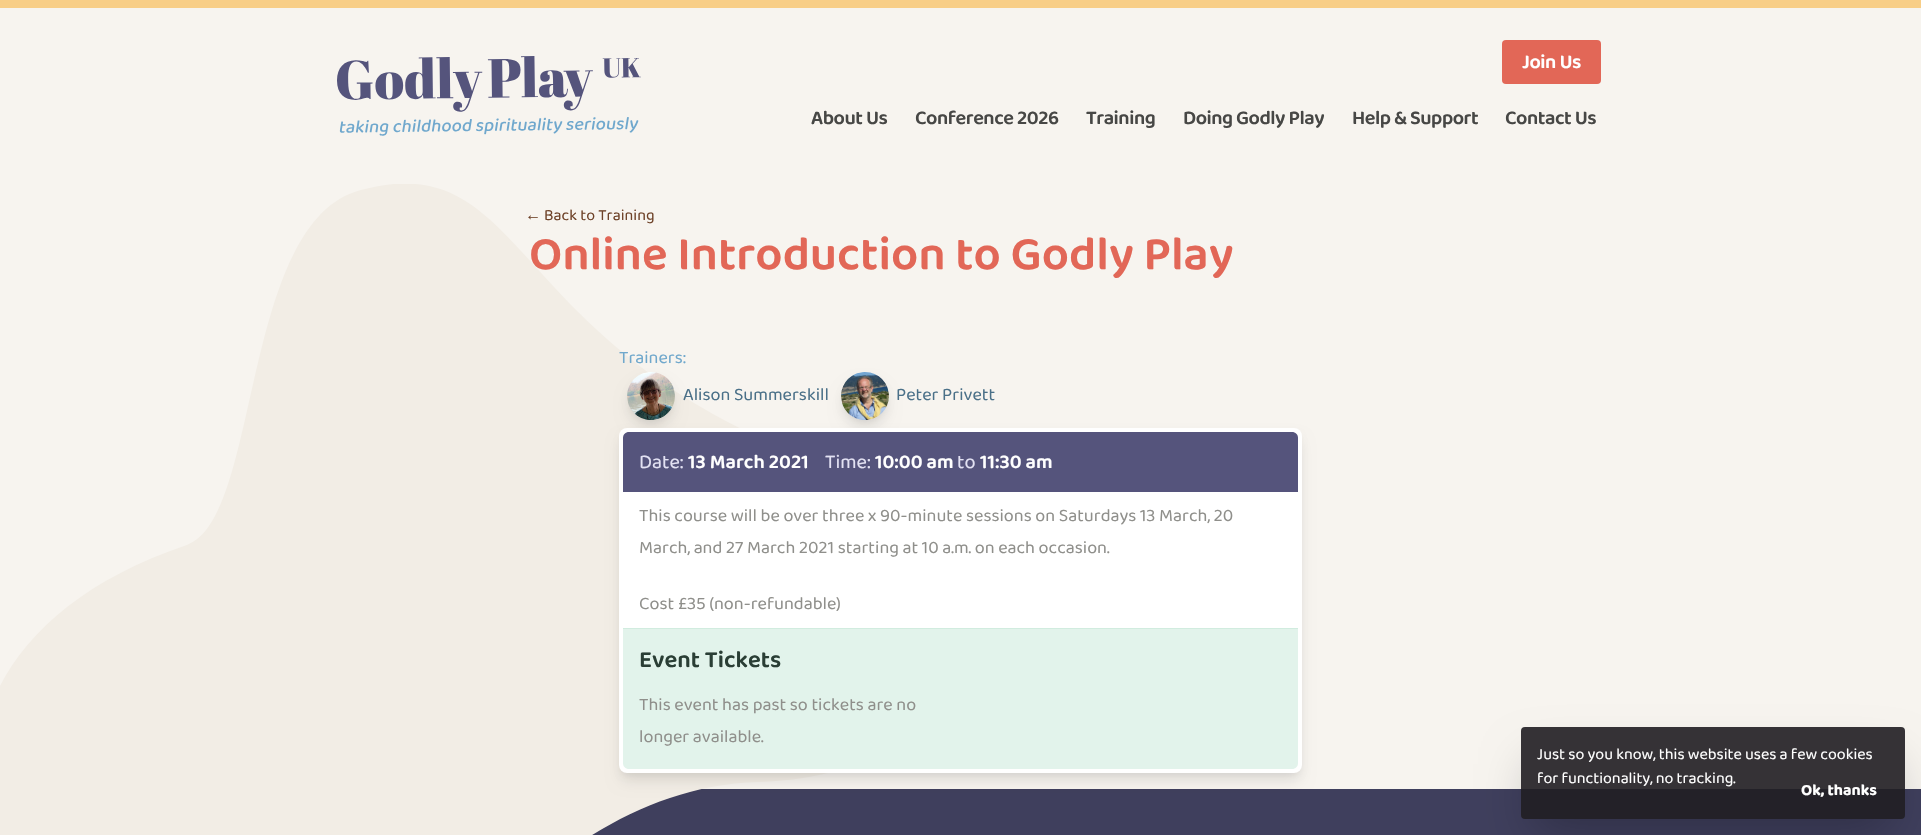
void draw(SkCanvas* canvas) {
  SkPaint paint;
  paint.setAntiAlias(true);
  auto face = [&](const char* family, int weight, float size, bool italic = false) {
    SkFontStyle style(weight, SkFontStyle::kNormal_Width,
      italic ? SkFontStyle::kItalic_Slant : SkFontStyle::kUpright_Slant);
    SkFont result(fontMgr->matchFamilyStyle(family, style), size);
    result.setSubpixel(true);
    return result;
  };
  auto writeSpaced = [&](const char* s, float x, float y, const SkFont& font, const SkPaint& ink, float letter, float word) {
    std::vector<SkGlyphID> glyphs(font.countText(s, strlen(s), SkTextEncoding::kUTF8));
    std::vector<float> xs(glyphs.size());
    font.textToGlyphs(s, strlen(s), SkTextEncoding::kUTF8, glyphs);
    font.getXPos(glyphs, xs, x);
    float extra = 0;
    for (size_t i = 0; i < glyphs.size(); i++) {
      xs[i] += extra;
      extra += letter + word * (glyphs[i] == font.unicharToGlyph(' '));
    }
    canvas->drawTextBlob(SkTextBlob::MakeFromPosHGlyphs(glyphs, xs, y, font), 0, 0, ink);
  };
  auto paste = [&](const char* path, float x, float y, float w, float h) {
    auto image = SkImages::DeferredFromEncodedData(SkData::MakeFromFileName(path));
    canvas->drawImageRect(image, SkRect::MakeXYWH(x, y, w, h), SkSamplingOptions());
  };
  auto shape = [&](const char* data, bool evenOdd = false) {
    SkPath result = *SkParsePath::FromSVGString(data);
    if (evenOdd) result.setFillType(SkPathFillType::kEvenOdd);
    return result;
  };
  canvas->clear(0xfff7f4ef);
  paint.setColor(0xfff8ce87);
  canvas->drawRect(SkRect::MakeXYWH(0, 0, 1921, 8), paint);
  paste("img/1.png", 337, 56, 304, 80);
  paint.setColor(0xffe26757);
  canvas->drawRoundRect(SkRect::MakeXYWH(1502, 40, 99, 44), 4, 4, paint);
  paint.setColor(0xff3f3f5d);
  canvas->drawRect(SkRect::MakeXYWH(592, 789, 1329, 46), paint);
  canvas->save();
  canvas->clipRect(SkRect::MakeXYWH(0, 184, 937, 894));
  paint.setColor(0xfff2ede5);
  canvas->drawPath(shape("M361 190C240 221 262 519 187 545C-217 682 51 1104 234 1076C418 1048 530 789 758 782C1037 774 937 510 800 455C524 345 525 174 394 184C383 185 373 187 361 190Z"), paint);
  canvas->restore();
  paint.setColor(0x0d000000);
  paint.setMaskFilter(SkMaskFilter::MakeBlur(kNormal_SkBlurStyle, 3));
  canvas->drawRoundRect(SkRect::MakeXYWH(629, 378, 44, 44), 22, 22, paint);
  paint.setMaskFilter(nullptr);
  paint.setColor(0x1a000000);
  paint.setMaskFilter(SkMaskFilter::MakeBlur(kNormal_SkBlurStyle, 7.5f));
  canvas->drawRoundRect(SkRect::MakeXYWH(630, 385, 42, 42), 21, 21, paint);
  paint.setMaskFilter(nullptr);
  paste("img/2.png", 627, 372, 48, 48);
  paint.setColor(0x0d000000);
  paint.setMaskFilter(SkMaskFilter::MakeBlur(kNormal_SkBlurStyle, 3));
  canvas->drawRoundRect(SkRect::MakeXYWH(843, 378, 44, 44), 22, 22, paint);
  paint.setMaskFilter(nullptr);
  paint.setColor(0x1a000000);
  paint.setMaskFilter(SkMaskFilter::MakeBlur(kNormal_SkBlurStyle, 7.5f));
  canvas->drawRoundRect(SkRect::MakeXYWH(844, 385, 42, 42), 21, 21, paint);
  paint.setMaskFilter(nullptr);
  paste("img/3.png", 841, 372, 48, 48);
  paint.setColor(0x0d000000);
  paint.setMaskFilter(SkMaskFilter::MakeBlur(kNormal_SkBlurStyle, 3));
  canvas->drawRoundRect(SkRect::MakeXYWH(621, 434, 679, 341), 6, 6, paint);
  paint.setMaskFilter(nullptr);
  paint.setColor(0x1a000000);
  paint.setMaskFilter(SkMaskFilter::MakeBlur(kNormal_SkBlurStyle, 7.5f));
  canvas->drawRoundRect(SkRect::MakeXYWH(622, 441, 677, 339), 5, 5, paint);
  paint.setMaskFilter(nullptr);
  paint.setColor(0xffffffff);
  canvas->drawRoundRect(SkRect::MakeXYWH(619, 428, 683, 345), 8, 8, paint);
  paint.setColor(0xff55547c);
  canvas->drawPath(shape("M629 432H1292C1295.5 432 1298 434.5 1298 438V492H623V438C623 434.5 625.5 432 629 432Z"), paint);
  paint.setColor(0xffe2f3eb);
  canvas->drawPath(shape("M623 629H1298V763C1298 766.5 1295.5 769 1292 769H629C625.5 769 623 766.5 623 763Z"), paint);
  paint.setColor(0xffd1ecdf);
  canvas->drawRect(SkRect::MakeXYWH(623, 628, 675, 1), paint);
  canvas->save();
  canvas->clipPath(shape("M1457 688H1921V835H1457ZM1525 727H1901C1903 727 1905 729 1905 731V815C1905 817 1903 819 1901 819H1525C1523 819 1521 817 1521 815V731C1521 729 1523 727 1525 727Z", true), true);
  paint.setColor(0x40000000);
  paint.setMaskFilter(SkMaskFilter::MakeBlur(kNormal_SkBlurStyle, 25));
  canvas->drawRect(SkRect::MakeXYWH(1533, 764, 360, 68), paint);
  paint.setMaskFilter(nullptr);
  canvas->restore();
  paint.setColor(0xe61f1d21);
  canvas->drawRoundRect(SkRect::MakeXYWH(1521, 727, 384, 92), 4, 4, paint);
  auto f0 = face("Baloo 2", 600, 20);
  paint.setColor(0xffffffff);
  writeSpaced("Join Us", 1522, 68, f0, paint, -0.5f, 0);
  paint.setColor(0xff474745);
  {
    const struct { const char* s; float x, y; } items[] = {
      {"About Us", 811, 124},
      {"Conference 2026", 915, 124},
      {"Training", 1086, 124},
      {"Doing Godly Play", 1183, 124},
      {"Help & Support", 1352, 124},
      {"Contact Us", 1505, 124},
    };
    for (auto [s, x, y] : items) {
      writeSpaced(s, x, y, f0, paint, -0.5f, 0);
    }
  }
  auto f1 = face("Liberation Sans", 400, 16);
  paint.setColor(0xff6e4228);
  canvas->drawString("←", 525, 220, f1, paint);
  auto f2 = face("Baloo 2", 400, 16);
  canvas->drawString("Back to Training", 544, 220, f2, paint);
  auto f3 = face("Baloo 2", 600, 48);
  paint.setColor(0xffe26757);
  canvas->drawString("Online Introduction to Godly Play", 529, 269, f3, paint);
  auto f4 = face("Baloo 2", 400, 18);
  paint.setColor(0xff70a8cc);
  canvas->drawString("Trainers:", 619, 363, f4, paint);
  paint.setColor(0xff4a7088);
  canvas->drawString("Alison Summerskill", 683, 400, f4, paint);
  canvas->drawString("Peter Privett", 896, 400, f4, paint);
  auto f5 = face("Baloo 2", 400, 20);
  paint.setColor(0xffe3e2f3);
  canvas->drawString("Date:", 639, 468, f5, paint);
  paint.setColor(0xffffffff);
  canvas->drawString("13 March 2021", 688, 468, f0, paint);
  paint.setColor(0xffe3e2f3);
  canvas->drawString("Time:", 825, 468, f5, paint);
  paint.setColor(0xffffffff);
  canvas->drawString("10:00 am", 875, 468, f0, paint);
  paint.setColor(0xffe3e2f3);
  canvas->drawString("to", 957, 468, f5, paint);
  paint.setColor(0xffffffff);
  canvas->drawString("11:30 am", 980, 468, f0, paint);
  paint.setColor(0xff8f8f8b);
  {
    const struct { const char* s; float x, y; } items[] = {
      {"This course will be over three x 90-minute sessions on Saturdays 13 March, 20", 639, 521},
      {"March, and 27 March 2021 starting at 10 a.m. on each occasion.", 639, 553},
      {"Cost £35 (non-refundable)", 639, 609},
    };
    for (auto [s, x, y] : items) {
      canvas->drawString(s, x, y, f4, paint);
    }
  }
  auto f6 = face("Baloo 2", 600, 24);
  paint.setColor(0xff2a3e35);
  canvas->drawString("Event Tickets", 639, 667, f6, paint);
  paint.setColor(0xff8f8f8b);
  canvas->drawString("This event has past so tickets are no", 639, 710, f4, paint);
  canvas->drawString("longer available.", 639, 742, f4, paint);
  paint.setColor(0xffffffff);
  canvas->drawString("Just so you know, this website uses a few cookies", 1537, 759, f2, paint);
  canvas->drawString("for functionality, no tracking.", 1537, 783, f2, paint);
  auto f7 = face("Baloo 2", 700, 16);
  canvas->drawString("Ok, thanks", 1801, 795, f7, paint);
}
